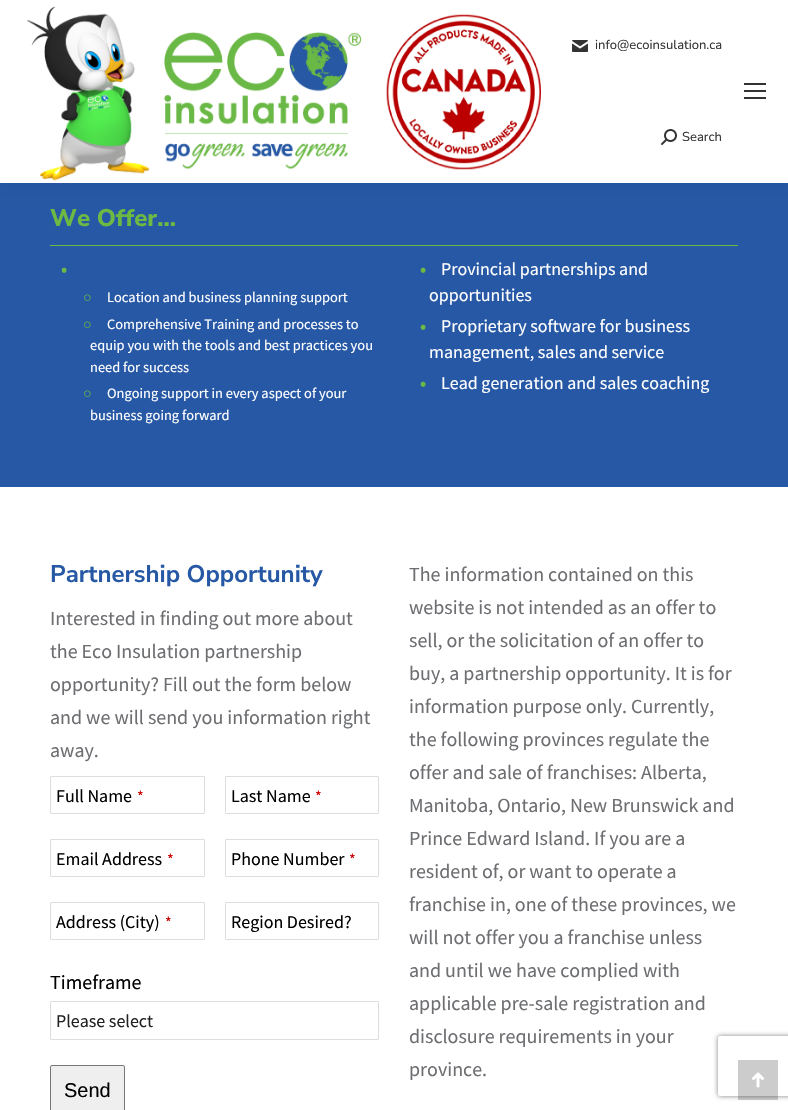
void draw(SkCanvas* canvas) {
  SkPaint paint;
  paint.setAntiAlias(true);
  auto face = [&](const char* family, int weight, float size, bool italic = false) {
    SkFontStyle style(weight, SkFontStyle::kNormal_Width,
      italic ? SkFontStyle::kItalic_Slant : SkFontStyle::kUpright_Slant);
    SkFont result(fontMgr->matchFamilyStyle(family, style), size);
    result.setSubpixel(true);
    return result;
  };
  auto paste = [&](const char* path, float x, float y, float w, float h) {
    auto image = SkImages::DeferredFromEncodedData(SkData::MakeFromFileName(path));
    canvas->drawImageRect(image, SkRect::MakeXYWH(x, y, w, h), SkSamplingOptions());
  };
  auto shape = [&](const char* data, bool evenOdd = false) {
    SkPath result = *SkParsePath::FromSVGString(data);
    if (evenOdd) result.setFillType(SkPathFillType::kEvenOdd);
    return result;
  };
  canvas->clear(0xffffffff);
  paint.setColor(0xff2658a5);
  canvas->drawRect(SkRect::MakeXYWH(0, 183, 788, 304), paint);
  paint.setColor(0x12000000);
  paint.setMaskFilter(SkMaskFilter::MakeBlur(kNormal_SkBlurStyle, 7.5f));
  canvas->drawRect(SkRect::MakeXYWH(-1, -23, 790, 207), paint);
  paint.setMaskFilter(nullptr);
  paint.setColor(0xffffffff);
  canvas->drawRect(SkRect::MakeXYWH(0, 0, 788, 183), paint);
  paste("img/1.png", 27, 6, 514, 175);
  paste("img/2.png", 572, 40, 16, 12);
  paste("img/3.png", 661, 129, 16, 16);
  {
    const struct { float x, y, w, h; SkColor color; } items[] = {
      {744, 83, 22, 2, 0xff333333},
      {744, 90, 22, 2, 0xff333333},
      {744, 97, 22, 2, 0xff333333},
      {50, 245, 688, 1, 0xff6eb844},
    };
    for (auto [x, y, w, h, color] : items) {
      paint.setColor(color);
      canvas->drawRect(SkRect::MakeXYWH(x, y, w, h), paint);
    }
  }
  paint.setStroke(true);
  paint.setStrokeWidth(1);
  paint.setColor(0xffdddddd);
  canvas->drawRoundRect(SkRect::MakeXYWH(50.5f, 776.5f, 154, 37), 0.5f, 0.5f, paint);
  canvas->drawRoundRect(SkRect::MakeXYWH(50.5f, 839.5f, 154, 37), 0.5f, 0.5f, paint);
  canvas->drawRoundRect(SkRect::MakeXYWH(50.5f, 902.5f, 154, 37), 0.5f, 0.5f, paint);
  canvas->drawRoundRect(SkRect::MakeXYWH(225.5f, 776.5f, 153, 37), 0.5f, 0.5f, paint);
  canvas->drawRoundRect(SkRect::MakeXYWH(225.5f, 839.5f, 153, 37), 0.5f, 0.5f, paint);
  canvas->drawRoundRect(SkRect::MakeXYWH(225.5f, 902.5f, 153, 37), 0.5f, 0.5f, paint);
  canvas->drawRoundRect(SkRect::MakeXYWH(50.5f, 1001.5f, 328, 38), 0.5f, 0.5f, paint);
  paint.setStroke(false);
  paint.setColor(0xffefefef);
  canvas->drawRoundRect(SkRect::MakeXYWH(50.5f, 1065.5f, 74, 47), 1.5f, 1.5f, paint);
  paint.setStroke(true);
  paint.setColor(0xff767676);
  canvas->drawRoundRect(SkRect::MakeXYWH(50.5f, 1065.5f, 74, 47), 1.5f, 1.5f, paint);
  canvas->save();
  canvas->clipPath(shape("M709 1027H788V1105H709ZM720 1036H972C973 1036 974 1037 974 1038V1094C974 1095 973 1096 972 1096H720C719 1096 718 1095 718 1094V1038C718 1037 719 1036 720 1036Z", true), true);
  paint.setStroke(false);
  paint.setColor(0xff808080);
  paint.setMaskFilter(SkMaskFilter::MakeBlur(kNormal_SkBlurStyle, 2.5f));
  canvas->drawRoundRect(SkRect::MakeXYWH(718, 1036, 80, 60), 2, 2, paint);
  paint.setMaskFilter(nullptr);
  canvas->restore();
  paint.setColor(0x33000000);
  canvas->drawRect(SkRect::MakeXYWH(738, 1060, 40, 40), paint);
  paste("img/4.png", 752, 1072, 12, 16);
  auto f0 = face("Nunito", 400, 13);
  paint.setColor(0xff333333);
  canvas->drawString("info@ecoinsulation.ca", 595, 49, f0, paint);
  canvas->drawString("Search", 682, 141, f0, paint);
  auto f1 = face("Nunito Sans", 800, 24);
  paint.setColor(0xff6eb844);
  canvas->drawString("We Offer...", 50, 226, f1, paint);
  auto f2 = face("Source Sans Pro", 700, 18);
  canvas->drawString("•", 61, 275, f2, paint);
  auto f3 = face("Liberation Sans", 700, 14.4f);
  canvas->drawString("○", 83, 302, f3, paint);
  auto f4 = face("Source Sans Pro", 400, 14.4f);
  paint.setColor(0xffffffff);
  canvas->drawString("Location and business planning support", 107, 302, f4, paint);
  paint.setColor(0xff6eb844);
  canvas->drawString("○", 83, 329, f3, paint);
  paint.setColor(0xffffffff);
  {
    const struct { const char* s; float x, y; } items[] = {
      {"Comprehensive Training and processes to", 107, 329},
      {"equip you with the tools and best practices you", 90, 350},
      {"need for success", 90, 372},
    };
    for (auto [s, x, y] : items) {
      canvas->drawString(s, x, y, f4, paint);
    }
  }
  paint.setColor(0xff6eb844);
  canvas->drawString("○", 83, 398, f3, paint);
  paint.setColor(0xffffffff);
  canvas->drawString("Ongoing support in every aspect of your", 107, 398, f4, paint);
  canvas->drawString("business going forward", 90, 420, f4, paint);
  paint.setColor(0xff6eb844);
  canvas->drawString("•", 420, 275, f2, paint);
  auto f5 = face("Source Sans Pro", 400, 18);
  paint.setColor(0xffffffff);
  canvas->drawString("Provincial partnerships and", 441, 275, f5, paint);
  canvas->drawString("opportunities", 429, 301, f5, paint);
  paint.setColor(0xff6eb844);
  canvas->drawString("•", 420, 332, f2, paint);
  paint.setColor(0xffffffff);
  canvas->drawString("Proprietary software for business", 441, 332, f5, paint);
  canvas->drawString("management, sales and service", 429, 358, f5, paint);
  paint.setColor(0xff6eb844);
  canvas->drawString("•", 420, 389, f2, paint);
  paint.setColor(0xffffffff);
  canvas->drawString("Lead generation and sales coaching", 441, 389, f5, paint);
  auto f6 = face("Nunito Sans", 700, 24);
  paint.setColor(0xff2658a5);
  canvas->drawString("Partnership Opportunity", 50, 582, f6, paint);
  auto f7 = face("Source Sans Pro", 400, 20);
  paint.setColor(0xff6d6e71);
  {
    const struct { const char* s; float x, y; } items[] = {
      {"Interested in finding out more about", 50, 625},
      {"the Eco Insulation partnership", 50, 658},
      {"opportunity? Fill out the form below", 50, 691},
      {"and we will send you information right", 50, 724},
      {"away.", 50, 757},
    };
    for (auto [s, x, y] : items) {
      canvas->drawString(s, x, y, f7, paint);
    }
  }
  paint.setColor(0xff000000);
  canvas->drawString("Full Name", 56, 802, f5, paint);
  auto f8 = face("Source Sans Pro", 400, 16);
  paint.setColor(0xffcc0101);
  canvas->drawString("*", 137, 802, f8, paint);
  paint.setColor(0xff000000);
  canvas->drawString("Email Address", 56, 865, f5, paint);
  paint.setColor(0xffcc0101);
  canvas->drawString("*", 167, 865, f8, paint);
  paint.setColor(0xff000000);
  canvas->drawString("Address (City)", 56, 928, f5, paint);
  paint.setColor(0xffcc0101);
  canvas->drawString("*", 165, 928, f8, paint);
  paint.setColor(0xff000000);
  canvas->drawString("Last Name", 231, 802, f5, paint);
  paint.setColor(0xffcc0101);
  canvas->drawString("*", 315, 802, f8, paint);
  paint.setColor(0xff000000);
  canvas->drawString("Phone Number", 231, 865, f5, paint);
  paint.setColor(0xffcc0101);
  canvas->drawString("*", 349, 865, f8, paint);
  paint.setColor(0xff000000);
  canvas->drawString("Region Desired?", 231, 928, f5, paint);
  canvas->drawString("Timeframe", 50, 989, f7, paint);
  paint.setColor(0xff222222);
  canvas->drawString("Please select", 56, 1027, f5, paint);
  auto f9 = face("Liberation Sans", 400, 20);
  paint.setColor(0xff000000);
  canvas->drawString("Send", 64, 1097, f9, paint);
  paint.setColor(0xff6d6e71);
  {
    const struct { const char* s; float x, y; } items[] = {
      {"The information contained on this", 409, 581},
      {"website is not intended as an offer to", 409, 614},
      {"sell, or the solicitation of an offer to", 409, 647},
      {"buy, a partnership opportunity. It is for", 409, 680},
      {"information purpose only. Currently,", 409, 713},
      {"the following provinces regulate the", 409, 746},
      {"offer and sale of franchises: Alberta,", 409, 779},
      {"Manitoba, Ontario, New Brunswick and", 409, 812},
      {"Prince Edward Island. If you are a", 409, 845},
      {"resident of, or want to operate a", 409, 878},
      {"franchise in, one of these provinces, we", 409, 911},
      {"will not offer you a franchise unless", 409, 944},
      {"and until we have complied with", 409, 977},
      {"applicable pre-sale registration and", 409, 1010},
      {"disclosure requirements in your", 409, 1043},
      {"province.", 409, 1076},
    };
    for (auto [s, x, y] : items) {
      canvas->drawString(s, x, y, f7, paint);
    }
  }
}
